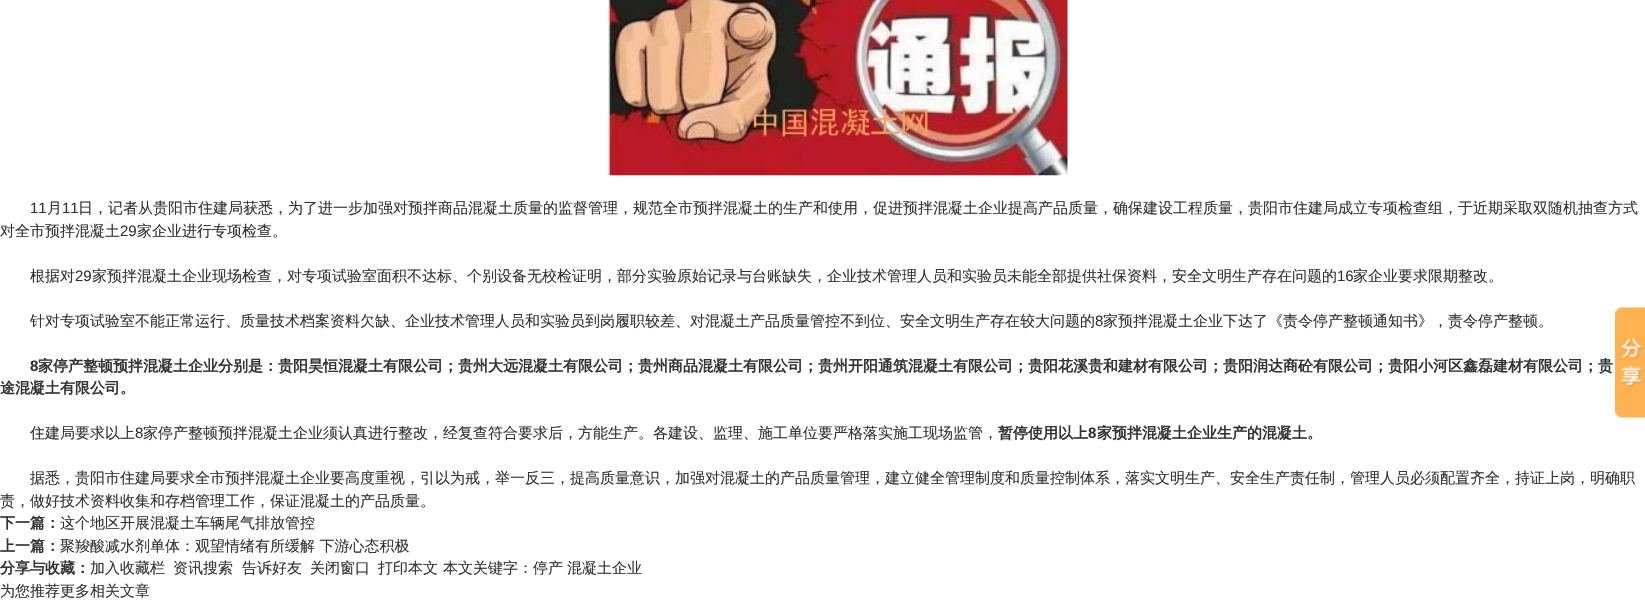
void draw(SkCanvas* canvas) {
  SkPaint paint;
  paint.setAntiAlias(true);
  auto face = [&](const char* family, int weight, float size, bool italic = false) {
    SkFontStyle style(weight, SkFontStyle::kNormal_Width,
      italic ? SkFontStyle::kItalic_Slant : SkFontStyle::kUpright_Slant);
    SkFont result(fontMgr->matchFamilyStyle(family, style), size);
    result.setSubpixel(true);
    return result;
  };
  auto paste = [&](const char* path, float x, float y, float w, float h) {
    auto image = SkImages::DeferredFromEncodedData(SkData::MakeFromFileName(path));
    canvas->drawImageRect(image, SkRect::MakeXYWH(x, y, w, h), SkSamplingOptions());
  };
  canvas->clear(0xffffffff);
  paste("img/1.png", 608, 0, 460, 176);
  paste("img/2.png", 1615, 307, 30, 111);
  auto f0 = face("Liberation Sans", 400, 15);
  paint.setColor(0xff333333);
  canvas->drawString("11", 30, 213, f0, paint);
  auto f1 = face("WenQuanYi Zen Hei", 500, 15);
  canvas->drawString("月", 47, 213, f1, paint);
  canvas->drawString("11", 62, 213, f0, paint);
  canvas->drawString("日，记者从贵阳市住建局获悉，为了进一步加强对预拌商品混凝土质量的监督管理，规范全市预拌混凝土的生产和使用，促进预拌混凝土企业提高产品质量，确保建设工程质量，贵阳市住建局成立专项检查组，于近期采取双随机抽查方式", 78, 213, f1, paint);
  canvas->drawString("对全市预拌混凝土", 0, 236, f1, paint);
  canvas->drawString("29", 120, 236, f0, paint);
  canvas->drawString("家企业进行专项检查。", 137, 236, f1, paint);
  canvas->drawString("根据对", 30, 281, f1, paint);
  canvas->drawString("29", 75, 281, f0, paint);
  canvas->drawString("家预拌混凝土企业现场检查，对专项试验室面积不达标、个别设备无校检证明，部分实验原始记录与台账缺失，企业技术管理人员和实验员未能全部提供社保资料，安全文明生产存在问题的", 92, 281, f1, paint);
  canvas->drawString("16", 1337, 281, f0, paint);
  canvas->drawString("家企业要求限期整改。", 1353, 281, f1, paint);
  canvas->drawString("针对专项试验室不能正常运行、质量技术档案资料欠缺、企业技术管理人员和实验员到岗履职较差、对混凝土产品质量管控不到位、安全文明生产存在较大问题的", 30, 326, f1, paint);
  canvas->drawString("8", 1095, 326, f0, paint);
  canvas->drawString("家预拌混凝土企业下达了《责令停产整顿通知书》，责令停产整顿。", 1103, 326, f1, paint);
  auto f2 = face("Liberation Sans", 700, 15);
  canvas->drawString("8", 30, 371, f2, paint);
  auto f3 = face("WenQuanYi Zen Hei", 700, 15);
  canvas->drawString("家停产整顿预拌混凝土企业分别是：贵阳昊恒混凝土有限公司；贵州大远混凝土有限公司；贵州商品混凝土有限公司；贵州开阳通筑混凝土有限公司；贵阳花溪贵和建材有限公司；贵阳润达商砼有限公司；贵阳小河区鑫磊建材有限公司；贵", 38, 371, f3, paint);
  canvas->drawString("途混凝土有限公司。", 0, 393, f3, paint);
  canvas->drawString("住建局要求以上", 30, 438, f1, paint);
  canvas->drawString("8", 135, 438, f0, paint);
  canvas->drawString("家停产整顿预拌混凝土企业须认真进行整改，经复查符合要求后，方能生产。各建设、监理、施工单位要严格落实施工现场监管，", 143, 438, f1, paint);
  canvas->drawString("暂停使用以上", 998, 438, f3, paint);
  canvas->drawString("8", 1088, 438, f2, paint);
  canvas->drawString("家预拌混凝土企业生产的混凝土。", 1097, 438, f3, paint);
  canvas->drawString("据悉，贵阳市住建局要求全市预拌混凝土企业要高度重视，引以为戒，举一反三，提高质量意识，加强对混凝土的产品质量管理，建立健全管理制度和质量控制体系，落实文明生产、安全生产责任制，管理人员必须配置齐全，持证上岗，明确职", 30, 483, f1, paint);
  canvas->drawString("责，做好技术资料收集和存档管理工作，保证混凝土的产品质量。", 0, 506, f1, paint);
  canvas->drawString("下一篇：", 0, 528, f3, paint);
  canvas->drawString("这个地区开展混凝土车辆尾气排放管控", 60, 528, f1, paint);
  canvas->drawString("上一篇：", 0, 551, f3, paint);
  canvas->drawString("聚羧酸减水剂单体：观望情绪有所缓解 下游心态积极", 60, 551, f1, paint);
  canvas->drawString("分享与收藏：", 0, 573, f3, paint);
  {
    const struct { const char* s; float x, y; } items[] = {
      {"加入收藏栏", 90, 573},
      {"资讯搜索", 173, 573},
      {"告诉好友", 242, 573},
      {"关闭窗口", 310, 573},
      {"打印本文", 378, 573},
      {"本文关键字：停产", 443, 573},
      {"混凝土企业", 567, 573},
      {"为您推荐更多相关文章", 0, 596},
    };
    for (auto [s, x, y] : items) {
      canvas->drawString(s, x, y, f1, paint);
    }
  }
}
